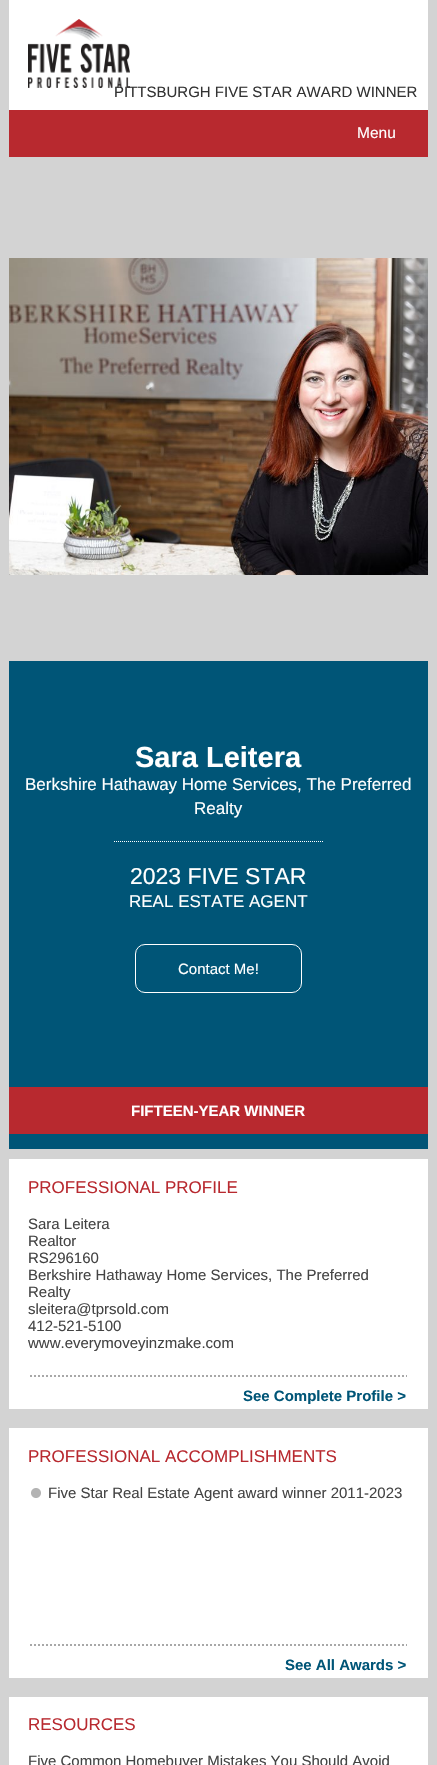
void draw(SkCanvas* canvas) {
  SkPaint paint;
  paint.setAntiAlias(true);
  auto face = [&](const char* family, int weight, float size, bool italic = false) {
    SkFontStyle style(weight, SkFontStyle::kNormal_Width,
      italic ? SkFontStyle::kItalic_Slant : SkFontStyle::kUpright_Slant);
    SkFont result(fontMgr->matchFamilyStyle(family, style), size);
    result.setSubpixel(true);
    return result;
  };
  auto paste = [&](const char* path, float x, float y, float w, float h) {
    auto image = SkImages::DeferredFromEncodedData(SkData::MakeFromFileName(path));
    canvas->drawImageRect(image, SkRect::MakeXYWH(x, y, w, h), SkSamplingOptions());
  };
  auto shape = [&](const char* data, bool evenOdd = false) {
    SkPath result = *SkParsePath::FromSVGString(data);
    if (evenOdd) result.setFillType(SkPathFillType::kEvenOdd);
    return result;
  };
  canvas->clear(0xffd3d3d3);
  paint.setColor(0xffffffff);
  canvas->drawRect(SkRect::MakeXYWH(9, 0, 419, 110), paint);
  paste("img/1.png", 28, 19, 102, 69);
  paint.setColor(0xffb8292f);
  canvas->drawRect(SkRect::MakeXYWH(9, 110, 419, 47), paint);
  paste("img/2.png", 9, 258, 419, 317);
  paint.setColor(0xff005577);
  canvas->drawRect(SkRect::MakeXYWH(9, 661, 419, 488), paint);
  paint.setStroke(true);
  paint.setStrokeWidth(1);
  paint.setColor(0xffffffff);
  paint.setPathEffect(SkDashPathEffect::Make({{1, 1}}, 0));
  canvas->drawPath(shape("M114 841.5H323"), paint);
  paint.setPathEffect(nullptr);
  canvas->drawRoundRect(SkRect::MakeXYWH(135.5f, 944.5f, 166, 48), 9.5f, 9.5f, paint);
  paint.setStroke(false);
  paint.setColor(0xffb8292f);
  canvas->drawRect(SkRect::MakeXYWH(9, 1087, 419, 47), paint);
  paint.setColor(0xffffffff);
  canvas->drawRect(SkRect::MakeXYWH(9, 1159, 419, 250), paint);
  paint.setStroke(true);
  paint.setStrokeWidth(2);
  paint.setColor(0xffa8a8a8);
  paint.setPathEffect(SkDashPathEffect::Make({{2, 2}}, 0));
  canvas->drawPath(shape("M30 1376H407"), paint);
  paint.setPathEffect(nullptr);
  paint.setStroke(false);
  paint.setColor(0xffffffff);
  canvas->drawRect(SkRect::MakeXYWH(9, 1428, 419, 250), paint);
  paste("img/3.png", 31, 1488, 10, 10);
  paint.setStroke(true);
  paint.setColor(0xffa8a8a8);
  paint.setPathEffect(SkDashPathEffect::Make({{2, 2}}, 0));
  canvas->drawPath(shape("M30 1645H407"), paint);
  paint.setPathEffect(nullptr);
  paint.setStroke(false);
  paint.setColor(0xffffffff);
  canvas->drawRect(SkRect::MakeXYWH(9, 1697, 419, 68), paint);
  auto f0 = face("Liberation Sans", 400, 15);
  paint.setColor(0xff333333);
  canvas->drawString("PITTSBURGH FIVE STAR AWARD WINNER", 114, 97, f0, paint);
  auto f1 = face("Liberation Sans", 400, 15.5f);
  paint.setColor(0xffffffff);
  canvas->drawString("Menu", 357, 138, f1, paint);
  auto f2 = face("Liberation Sans", 700, 29);
  canvas->drawString("Sara Leitera", 135, 767, f2, paint);
  auto f3 = face("Liberation Sans", 400, 17);
  canvas->drawString("Berkshire Hathaway Home Services, The Preferred", 25, 790, f3, paint);
  canvas->drawString("Realty", 194, 814, f3, paint);
  auto f4 = face("Liberation Sans", 400, 23);
  canvas->drawString("2023 FIVE STAR", 130, 884, f4, paint);
  canvas->drawString("REAL ESTATE AGENT", 129, 907, f3, paint);
  canvas->drawString("Contact Me!", 178, 974, f0, paint);
  auto f5 = face("Liberation Sans", 700, 15);
  canvas->drawString("FIFTEEN-YEAR WINNER", 131, 1116, f5, paint);
  paint.setColor(0xffb8292f);
  canvas->drawString("PROFESSIONAL PROFILE", 28, 1193, f3, paint);
  paint.setColor(0xff444444);
  {
    const struct { const char* s; float x, y; } items[] = {
      {"Sara Leitera", 28, 1229},
      {"Realtor", 28, 1246},
      {"RS296160", 28, 1263},
      {"Berkshire Hathaway Home Services, The Preferred", 28, 1280},
      {"Realty", 28, 1297},
      {"sleitera@tprsold.com", 28, 1314},
      {"412-521-5100", 28, 1331},
      {"www.everymoveyinzmake.com", 28, 1348},
    };
    for (auto [s, x, y] : items) {
      canvas->drawString(s, x, y, f0, paint);
    }
  }
  paint.setColor(0xff005577);
  canvas->drawString("See Complete Profile >", 243, 1401, f5, paint);
  paint.setColor(0xffb8292f);
  canvas->drawString("PROFESSIONAL ACCOMPLISHMENTS", 28, 1462, f3, paint);
  paint.setColor(0xff444444);
  canvas->drawString("Five Star Real Estate Agent award winner 2011-2023", 48, 1498, f0, paint);
  paint.setColor(0xff005577);
  canvas->drawString("See All Awards >", 285, 1670, f5, paint);
  paint.setColor(0xffb8292f);
  canvas->drawString("RESOURCES", 28, 1730, f3, paint);
  paint.setColor(0xff444444);
  canvas->drawString("Five Common Homebuyer Mistakes You Should Avoid", 28, 1766, f0, paint);
}
